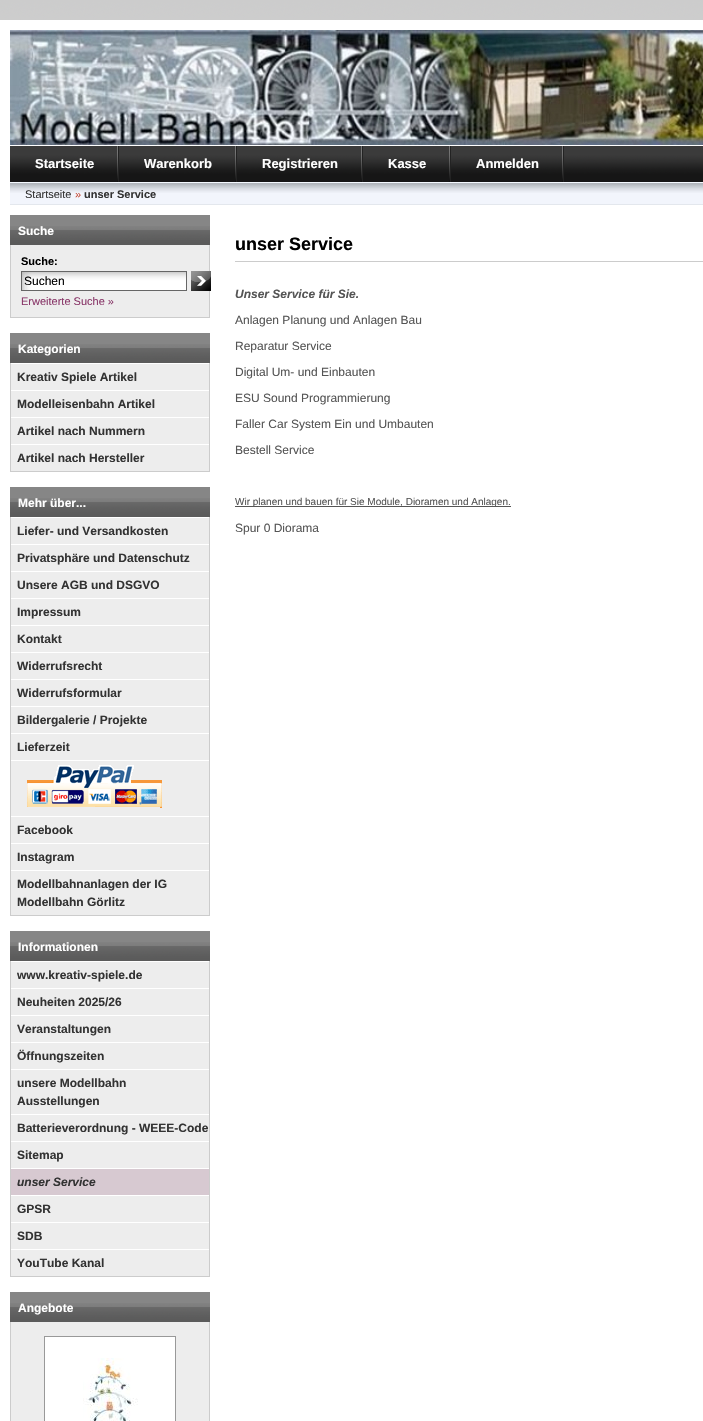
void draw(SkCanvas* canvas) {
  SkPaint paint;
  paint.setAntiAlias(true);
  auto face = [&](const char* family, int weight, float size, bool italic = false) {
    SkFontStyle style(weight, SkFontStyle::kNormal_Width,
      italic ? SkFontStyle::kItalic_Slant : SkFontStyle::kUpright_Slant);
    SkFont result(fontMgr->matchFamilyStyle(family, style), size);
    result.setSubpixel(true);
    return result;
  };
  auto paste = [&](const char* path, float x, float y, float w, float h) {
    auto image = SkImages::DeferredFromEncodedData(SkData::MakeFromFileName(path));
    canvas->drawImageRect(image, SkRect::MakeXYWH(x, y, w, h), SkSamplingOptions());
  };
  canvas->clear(0xffffffff);
  paste("img/1.png", 0, 0, 703, 20);
  paste("img/2.png", 10, 30, 693, 115);
  paste("img/3.png", 10, 146, 693, 36);
  paste("img/4.png", 117, 146, 2, 36);
  paste("img/4.png", 235, 146, 2, 36);
  paste("img/4.png", 361, 146, 2, 36);
  paste("img/4.png", 449, 146, 2, 36);
  paste("img/4.png", 562, 146, 2, 36);
  paste("img/5.png", 10, 182, 693, 23);
  paint.setColor(0xff868686);
  canvas->drawRect(SkRect::MakeXYWH(10, 215, 200, 11), paint);
  paste("img/6.png", 10, 226, 200, 19);
  {
    const struct { float x, y, w, h; SkColor color; } items[] = {
      {11, 245, 198, 72, 0xffededed},
      {209, 245, 1, 73, 0xffcccccc},
      {10, 317, 200, 1, 0xffcccccc},
      {10, 245, 1, 73, 0xffcccccc},
    };
    for (auto [x, y, w, h, color] : items) {
      paint.setColor(color);
      canvas->drawRect(SkRect::MakeXYWH(x, y, w, h), paint);
    }
  }
  paste("img/7.png", 22, 272, 164, 18);
  paint.setStroke(true);
  paint.setStrokeWidth(1);
  paint.setColor(0xff666666);
  canvas->drawRect(SkRect::MakeXYWH(21.5f, 271.5f, 165, 19), paint);
  paste("img/8.png", 191, 271, 20, 20);
  paint.setStroke(false);
  paint.setColor(0xff868686);
  canvas->drawRect(SkRect::MakeXYWH(10, 333, 200, 11), paint);
  paste("img/6.png", 10, 344, 200, 19);
  {
    const struct { float x, y, w, h; SkColor color; } items[] = {
      {11, 364, 198, 107, 0xffededed},
      {209, 363, 1, 109, 0xffcccccc},
      {10, 471, 200, 1, 0xffcccccc},
      {10, 363, 1, 109, 0xffcccccc},
      {11, 390, 198, 1, 0xffffffff},
      {11, 417, 198, 1, 0xffffffff},
      {11, 444, 198, 1, 0xffffffff},
      {10, 487, 200, 11, 0xff868686},
    };
    for (auto [x, y, w, h, color] : items) {
      paint.setColor(color);
      canvas->drawRect(SkRect::MakeXYWH(x, y, w, h), paint);
    }
  }
  paste("img/6.png", 10, 498, 200, 19);
  {
    const struct { float x, y, w, h; SkColor color; } items[] = {
      {11, 518, 198, 397, 0xffededed},
      {209, 517, 1, 399, 0xffcccccc},
      {10, 915, 200, 1, 0xffcccccc},
      {10, 517, 1, 399, 0xffcccccc},
      {11, 544, 198, 1, 0xffffffff},
      {11, 571, 198, 1, 0xffffffff},
      {11, 598, 198, 1, 0xffffffff},
      {11, 625, 198, 1, 0xffffffff},
      {11, 652, 198, 1, 0xffffffff},
      {11, 679, 198, 1, 0xffffffff},
      {11, 706, 198, 1, 0xffffffff},
      {11, 733, 198, 1, 0xffffffff},
      {11, 760, 198, 1, 0xffffffff},
    };
    for (auto [x, y, w, h, color] : items) {
      paint.setColor(color);
      canvas->drawRect(SkRect::MakeXYWH(x, y, w, h), paint);
    }
  }
  paste("img/9.png", 27, 765, 135, 43);
  {
    const struct { float x, y, w, h; SkColor color; } items[] = {
      {11, 816, 198, 1, 0xffffffff},
      {11, 843, 198, 1, 0xffffffff},
      {11, 870, 198, 1, 0xffffffff},
      {10, 931, 200, 11, 0xff868686},
    };
    for (auto [x, y, w, h, color] : items) {
      paint.setColor(color);
      canvas->drawRect(SkRect::MakeXYWH(x, y, w, h), paint);
    }
  }
  paste("img/6.png", 10, 942, 200, 19);
  {
    const struct { float x, y, w, h; SkColor color; } items[] = {
      {11, 962, 198, 314, 0xffededed},
      {209, 961, 1, 316, 0xffcccccc},
      {10, 1276, 200, 1, 0xffcccccc},
      {10, 961, 1, 316, 0xffcccccc},
      {11, 988, 198, 1, 0xffffffff},
      {11, 1015, 198, 1, 0xffffffff},
      {11, 1042, 198, 1, 0xffffffff},
      {11, 1069, 198, 1, 0xffffffff},
      {11, 1114, 198, 1, 0xffffffff},
      {11, 1141, 198, 1, 0xffffffff},
      {11, 1168, 198, 1, 0xffffffff},
      {11, 1169, 198, 26, 0xffd7c9d1},
      {11, 1195, 198, 1, 0xffffffff},
      {11, 1222, 198, 1, 0xffffffff},
      {11, 1249, 198, 1, 0xffffffff},
      {10, 1292, 200, 11, 0xff868686},
    };
    for (auto [x, y, w, h, color] : items) {
      paint.setColor(color);
      canvas->drawRect(SkRect::MakeXYWH(x, y, w, h), paint);
    }
  }
  paste("img/6.png", 10, 1303, 200, 19);
  {
    const struct { float x, y, w, h; SkColor color; } items[] = {
      {11, 1322, 198, 99, 0xffededed},
      {209, 1322, 1, 99, 0xffcccccc},
      {10, 1322, 1, 99, 0xffcccccc},
    };
    for (auto [x, y, w, h, color] : items) {
      paint.setColor(color);
      canvas->drawRect(SkRect::MakeXYWH(x, y, w, h), paint);
    }
  }
  paint.setColor(0xffffffff);
  canvas->drawRect(SkRect::MakeXYWH(44.5f, 1336.5f, 131, 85), paint);
  paint.setStroke(true);
  paint.setColor(0xff999999);
  canvas->drawRect(SkRect::MakeXYWH(44.5f, 1336.5f, 131, 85), paint);
  paste("img/10.png", 83, 1358, 55, 63);
  paint.setStroke(false);
  paint.setColor(0xffcccccc);
  canvas->drawRect(SkRect::MakeXYWH(235, 261, 468, 1), paint);
  paint.setColor(0xff555555);
  canvas->drawRect(SkRect::MakeXYWH(235, 506, 276, 1), paint);
  auto f0 = face("Liberation Sans", 700, 13);
  paint.setColor(0xffffffff);
  {
    const struct { const char* s; float x, y; } items[] = {
      {"Startseite", 35, 168},
      {"Warenkorb", 144, 168},
      {"Registrieren", 262, 168},
      {"Kasse", 388, 168},
      {"Anmelden", 476, 168},
    };
    for (auto [s, x, y] : items) {
      canvas->drawString(s, x, y, f0, paint);
    }
  }
  auto f1 = face("Liberation Sans", 400, 11);
  paint.setColor(0xff333333);
  canvas->drawString("Startseite", 25, 198, f1, paint);
  paint.setColor(0xffc64934);
  canvas->drawString("»", 75, 198, f1, paint);
  auto f2 = face("Liberation Sans", 700, 11);
  paint.setColor(0xff333333);
  canvas->drawString("unser Service", 84, 198, f2, paint);
  auto f3 = face("Liberation Sans", 700, 12);
  paint.setColor(0xffffffff);
  canvas->drawString("Suche", 18, 235, f3, paint);
  paint.setColor(0xff000000);
  canvas->drawString("Suche:", 21, 265, f2, paint);
  auto f4 = face("Liberation Sans", 400, 12);
  canvas->drawString("Suchen", 24, 285, f4, paint);
  paint.setColor(0xff893769);
  canvas->drawString("Erweiterte Suche »", 21, 305, f1, paint);
  paint.setColor(0xffffffff);
  canvas->drawString("Kategorien", 18, 353, f3, paint);
  paint.setColor(0xff333333);
  {
    const struct { const char* s; float x, y; } items[] = {
      {"Kreativ Spiele Artikel", 17, 381},
      {"Modelleisenbahn Artikel", 17, 408},
      {"Artikel nach Nummern", 17, 435},
      {"Artikel nach Hersteller", 17, 462},
    };
    for (auto [s, x, y] : items) {
      canvas->drawString(s, x, y, f3, paint);
    }
  }
  paint.setColor(0xffffffff);
  canvas->drawString("Mehr über...", 18, 507, f3, paint);
  paint.setColor(0xff333333);
  {
    const struct { const char* s; float x, y; } items[] = {
      {"Liefer- und Versandkosten", 17, 535},
      {"Privatsphäre und Datenschutz", 17, 562},
      {"Unsere AGB und DSGVO", 17, 589},
      {"Impressum", 17, 616},
      {"Kontakt", 17, 643},
      {"Widerrufsrecht", 17, 670},
      {"Widerrufsformular", 17, 697},
      {"Bildergalerie / Projekte", 17, 724},
      {"Lieferzeit", 17, 751},
      {"Facebook", 17, 834},
      {"Instagram", 17, 861},
      {"Modellbahnanlagen der IG", 17, 888},
      {"Modellbahn Görlitz", 17, 906},
    };
    for (auto [s, x, y] : items) {
      canvas->drawString(s, x, y, f3, paint);
    }
  }
  paint.setColor(0xffffffff);
  canvas->drawString("Informationen", 18, 951, f3, paint);
  paint.setColor(0xff333333);
  {
    const struct { const char* s; float x, y; } items[] = {
      {"www.kreativ-spiele.de", 17, 979},
      {"Neuheiten 2025/26", 17, 1006},
      {"Veranstaltungen", 17, 1033},
      {"Öffnungszeiten", 17, 1060},
      {"unsere Modellbahn", 17, 1087},
      {"Ausstellungen", 17, 1105},
      {"Batterieverordnung - WEEE-Code", 17, 1132},
      {"Sitemap", 17, 1159},
    };
    for (auto [s, x, y] : items) {
      canvas->drawString(s, x, y, f3, paint);
    }
  }
  auto f5 = face("Liberation Sans", 700, 12, true);
  canvas->drawString("unser Service", 17, 1186, f5, paint);
  {
    const struct { const char* s; float x, y; } items[] = {
      {"GPSR", 17, 1213},
      {"SDB", 17, 1240},
      {"YouTube Kanal", 17, 1267},
    };
    for (auto [s, x, y] : items) {
      canvas->drawString(s, x, y, f3, paint);
    }
  }
  paint.setColor(0xffffffff);
  canvas->drawString("Angebote", 18, 1312, f3, paint);
  auto f6 = face("Liberation Sans", 700, 18);
  paint.setColor(0xff000000);
  canvas->drawString("unser Service", 235, 250, f6, paint);
  paint.setColor(0xff555555);
  canvas->drawString("Unser Service für Sie.", 235, 298, f5, paint);
  {
    const struct { const char* s; float x, y; } items[] = {
      {"Anlagen Planung und Anlagen Bau", 235, 324},
      {"Reparatur Service", 235, 350},
      {"Digital Um- und Einbauten", 235, 376},
      {"ESU Sound Programmierung", 235, 402},
      {"Faller Car System Ein und Umbauten", 235, 428},
      {"Bestell Service", 235, 454},
    };
    for (auto [s, x, y] : items) {
      canvas->drawString(s, x, y, f4, paint);
    }
  }
  auto f7 = face("Liberation Sans", 400, 10);
  canvas->drawString("Wir planen und bauen für Sie Module, Dioramen und Anlagen.", 235, 505, f7, paint);
  canvas->drawString("Spur 0 Diorama", 235, 532, f4, paint);
}
